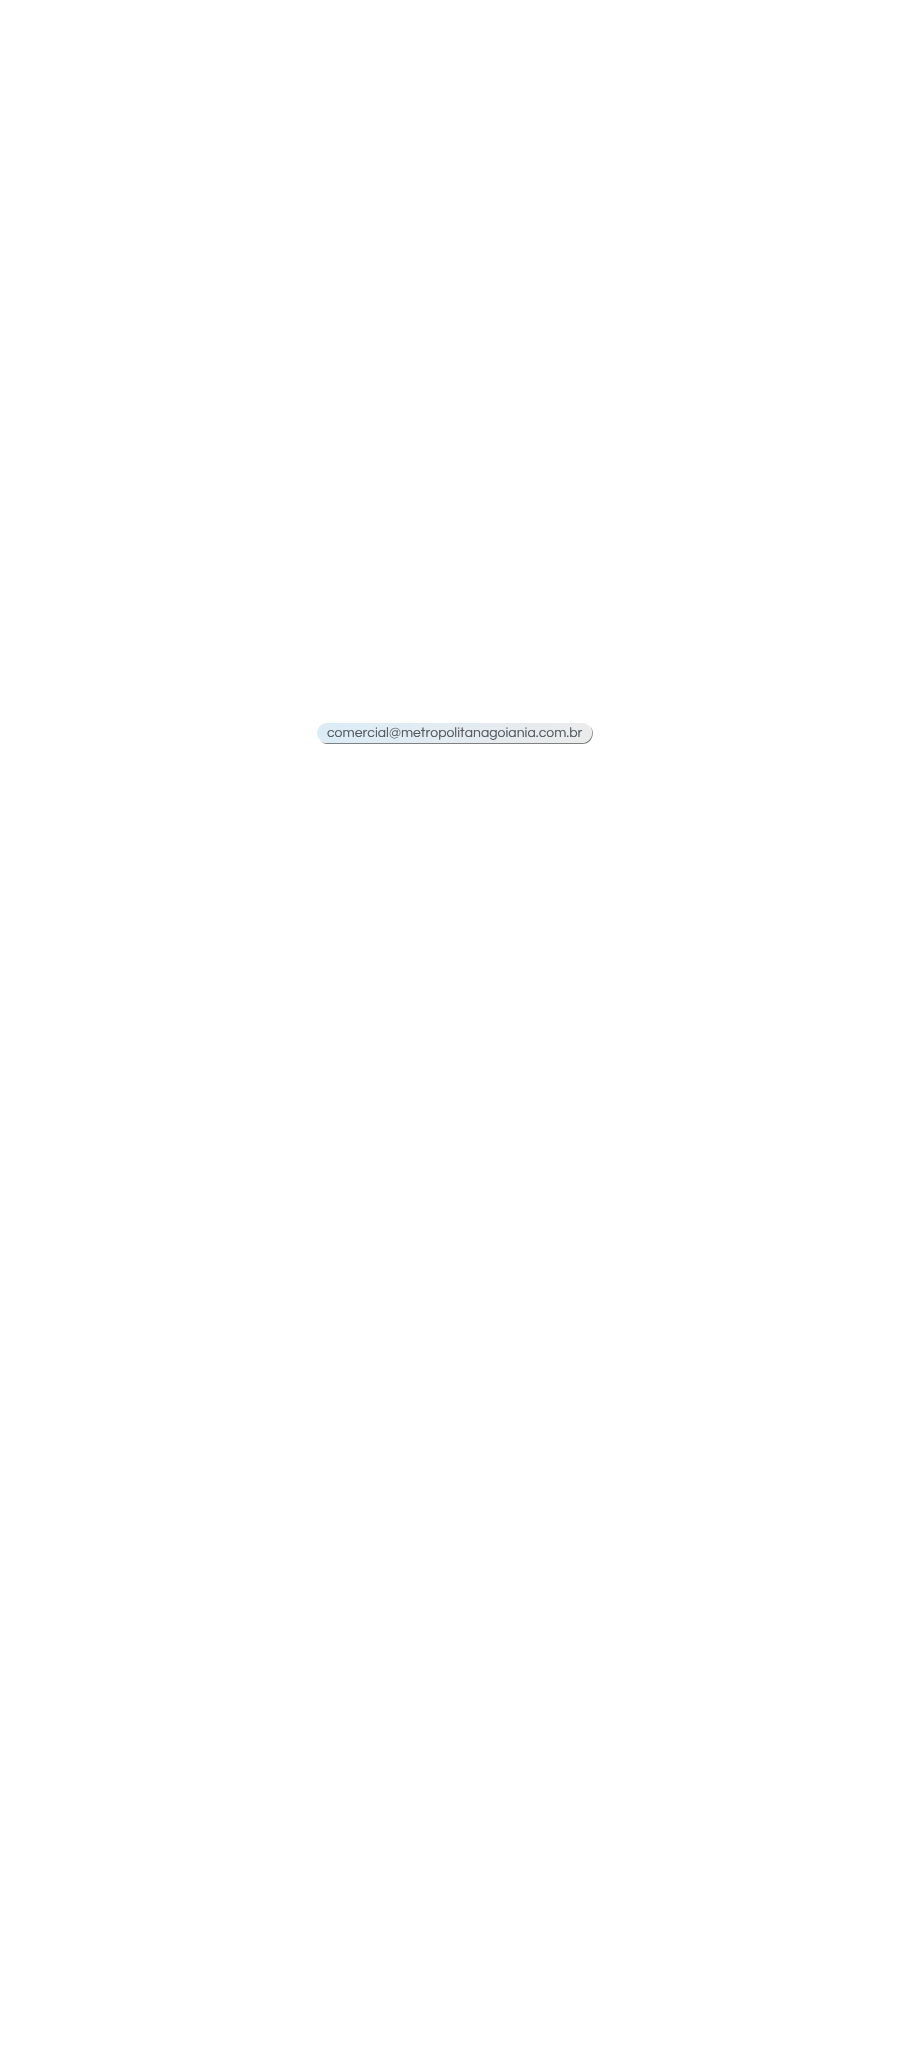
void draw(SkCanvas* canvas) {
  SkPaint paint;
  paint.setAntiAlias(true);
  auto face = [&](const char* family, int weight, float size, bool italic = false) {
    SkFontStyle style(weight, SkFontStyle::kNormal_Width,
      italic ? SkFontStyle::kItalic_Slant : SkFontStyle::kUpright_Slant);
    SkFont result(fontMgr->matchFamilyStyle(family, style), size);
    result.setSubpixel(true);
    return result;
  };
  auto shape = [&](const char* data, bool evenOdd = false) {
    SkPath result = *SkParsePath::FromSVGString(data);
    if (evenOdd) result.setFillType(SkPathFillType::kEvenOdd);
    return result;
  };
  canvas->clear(0xffffffff);
  paint.setColor(0xff808080);
  canvas->drawPath(shape("M320 741C322 742 324 744 327 744H583C592 744 596 732 590 726C595 733 590 743 582 743H326C324 743 322 742 320 741Z"), paint);
  {
    const SkColor colors[] = {0xffdbecf7, 0xffebebeb};
    const float stops[] = {0, 1};
    const SkPoint ends[] = {{319, 709}, {590, 757}};
    paint.setShader(SkGradientShader::MakeLinear(ends, colors, stops, 2, SkTileMode::kClamp));
    paint.setAlpha(255);
  }
  canvas->drawRoundRect(SkRect::MakeXYWH(317, 723, 275, 20), 10, 10, paint);
  auto f0 = face("Questrial", 400, 14);
  paint.setShader(nullptr);
  paint.setColor(0xff54595f);
  canvas->drawString("comercial@metropolitanagoiania.com.br", 327, 737, f0, paint);
}
